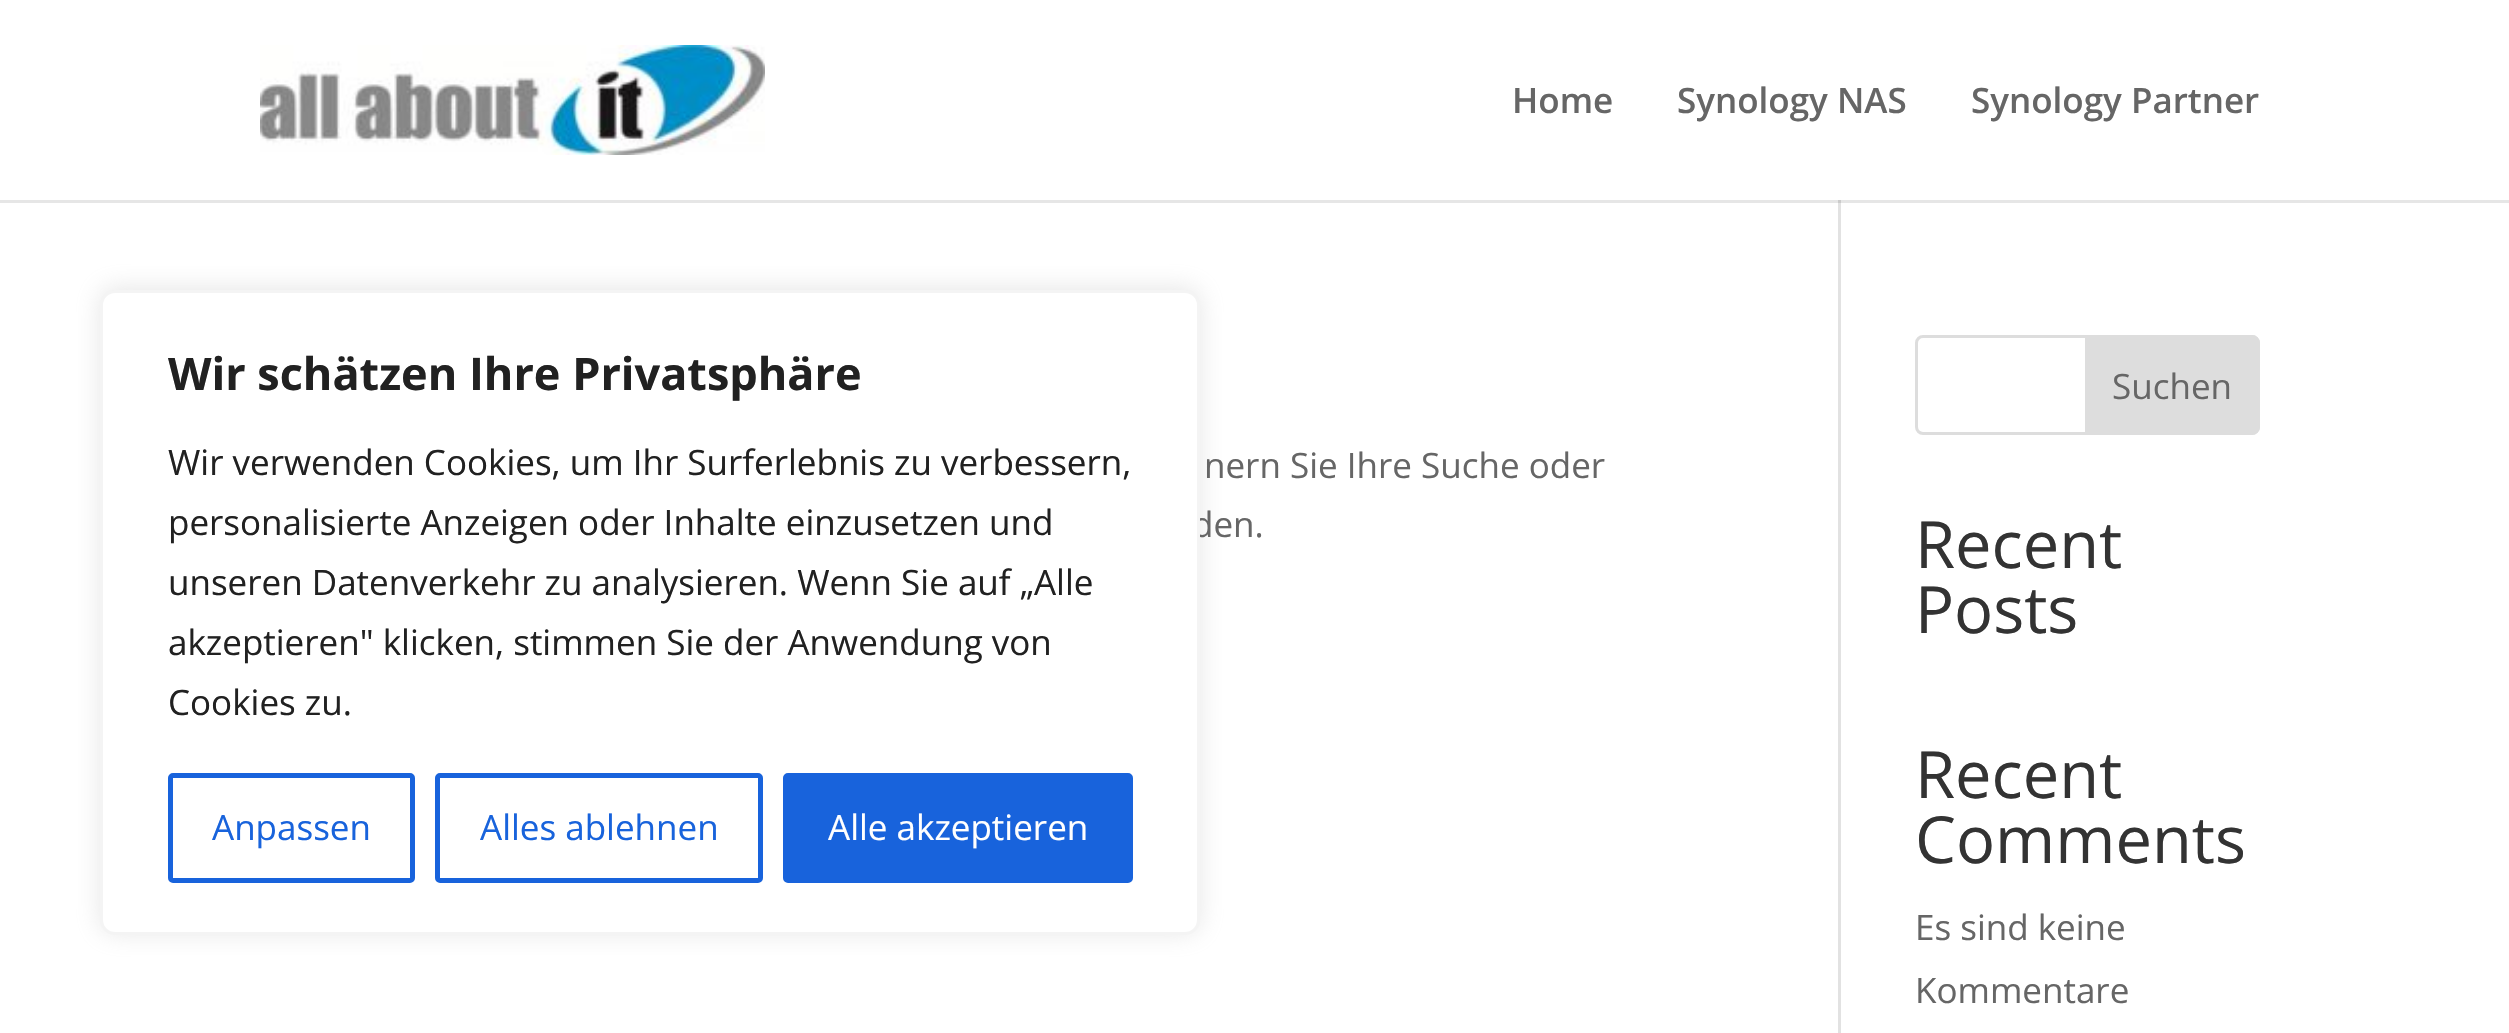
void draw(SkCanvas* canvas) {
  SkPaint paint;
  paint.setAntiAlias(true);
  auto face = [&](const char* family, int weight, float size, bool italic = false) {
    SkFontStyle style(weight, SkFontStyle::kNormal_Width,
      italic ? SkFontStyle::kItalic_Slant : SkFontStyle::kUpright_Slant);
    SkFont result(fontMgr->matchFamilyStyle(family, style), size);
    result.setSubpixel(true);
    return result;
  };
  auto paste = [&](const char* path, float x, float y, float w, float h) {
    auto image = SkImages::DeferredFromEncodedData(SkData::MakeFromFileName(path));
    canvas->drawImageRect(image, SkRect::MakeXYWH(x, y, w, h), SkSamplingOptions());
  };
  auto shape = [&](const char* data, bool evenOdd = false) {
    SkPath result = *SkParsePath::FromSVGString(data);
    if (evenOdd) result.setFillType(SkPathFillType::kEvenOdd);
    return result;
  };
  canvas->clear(0xffffffff);
  paint.setColor(0xffe6e6e6);
  canvas->drawRect(SkRect::MakeXYWH(0, 200, 2509, 3), paint);
  paint.setColor(0x4dacabab);
  paint.setMaskFilter(SkMaskFilter::MakeBlur(kNormal_SkBlurStyle, 12.5f));
  canvas->drawRoundRect(SkRect::MakeXYWH(100, 288, 1100, 645), 15, 15, paint);
  paint.setMaskFilter(nullptr);
  paste("img/1.png", 260, 45, 505, 110);
  paint.setColor(0xffe2e2e2);
  canvas->drawRect(SkRect::MakeXYWH(1838, 203, 3, 830), paint);
  paint.setColor(0xffcbcbcb);
  canvas->drawRect(SkRect::MakeXYWH(1838, 200, 3, 3), paint);
  paint.setStroke(true);
  paint.setStrokeWidth(3);
  paint.setColor(0xffdddddd);
  canvas->drawRoundRect(SkRect::MakeXYWH(1916.5f, 336.5f, 342, 97), 6.5f, 6.5f, paint);
  paint.setStroke(false);
  canvas->drawPath(shape("M2086.5 336.5H2252C2255.5 336.5 2258.5 339.5 2258.5 343V427C2258.5 430.5 2255.5 433.5 2252 433.5H2086.5Z"), paint);
  paint.setStroke(true);
  canvas->drawPath(shape("M2086.5 336.5H2252C2255.5 336.5 2258.5 339.5 2258.5 343V427C2258.5 430.5 2255.5 433.5 2252 433.5H2086.5Z"), paint);
  auto f0 = face("Open Sans", 600, 35);
  paint.setStroke(false);
  paint.setColor(0xff666666);
  {
    const struct { const char* s; float x, y; } items[] = {
      {"Home", 1512, 113},
      {"Synology NAS", 1677, 113},
      {"Synology Partner", 1971, 113},
    };
    for (auto [s, x, y] : items) {
      canvas->drawString(s, x, y, f0, paint);
    }
  }
  auto f1 = face("Open Sans", 400, 35);
  canvas->drawString("nern Sie Ihre Suche oder", 1204, 478, f1, paint);
  canvas->drawString("den.", 1192, 537, f1, paint);
  paint.setColor(0xffffffff);
  canvas->drawRoundRect(SkRect::MakeXYWH(101.5f, 291.5f, 1097, 642), 13.5f, 13.5f, paint);
  paint.setStroke(true);
  paint.setColor(0xfff4f4f4);
  canvas->drawRoundRect(SkRect::MakeXYWH(101.5f, 291.5f, 1097, 642), 13.5f, 13.5f, paint);
  paint.setStroke(false);
  paint.setColor(0xff1863dc);
  canvas->drawRoundRect(SkRect::MakeXYWH(785.5f, 775.5f, 345, 105), 2.5f, 2.5f, paint);
  paint.setStroke(true);
  paint.setStrokeWidth(5);
  canvas->drawRoundRect(SkRect::MakeXYWH(785.5f, 775.5f, 345, 105), 2.5f, 2.5f, paint);
  paint.setStroke(false);
  paint.setColor(0xffffffff);
  canvas->drawString("Alle akzeptieren", 828, 840, f1, paint);
  paint.setStroke(true);
  paint.setColor(0xff1863dc);
  canvas->drawRoundRect(SkRect::MakeXYWH(437.5f, 775.5f, 323, 105), 2.5f, 2.5f, paint);
  paint.setStroke(false);
  canvas->drawString("Alles ablehnen", 480, 840, f1, paint);
  paint.setStroke(true);
  canvas->drawRoundRect(SkRect::MakeXYWH(170.5f, 775.5f, 242, 105), 2.5f, 2.5f, paint);
  paint.setStroke(false);
  canvas->drawString("Anpassen", 212, 840, f1, paint);
  paint.setColor(0xff212121);
  {
    const struct { const char* s; float x, y; } items[] = {
      {"Cookies zu.", 168, 715},
      {"akzeptieren\" klicken, stimmen Sie der Anwendung von", 168, 655},
      {"unseren Datenverkehr zu analysieren. Wenn Sie auf „Alle", 168, 595},
      {"personalisierte Anzeigen oder Inhalte einzusetzen und", 168, 535},
      {"Wir verwenden Cookies, um Ihr Surferlebnis zu verbessern,", 168, 475},
    };
    for (auto [s, x, y] : items) {
      canvas->drawString(s, x, y, f1, paint);
    }
  }
  auto f2 = face("Open Sans", 700, 45);
  canvas->drawString("Wir schätzen Ihre Privatsphäre", 168, 390, f2, paint);
  paint.setColor(0xff666666);
  canvas->drawString("Suchen", 2112, 399, f1, paint);
  auto f3 = face("Open Sans", 400, 65);
  paint.setColor(0xff333333);
  {
    const struct { const char* s; float x, y; } items[] = {
      {"Recent", 1915, 568},
      {"Posts", 1915, 633},
      {"Recent", 1915, 798},
      {"Comments", 1915, 863},
    };
    for (auto [s, x, y] : items) {
      canvas->drawString(s, x, y, f3, paint);
    }
  }
  paint.setColor(0xff666666);
  canvas->drawString("Es sind keine", 1915, 940, f1, paint);
  canvas->drawString("Kommentare", 1915, 1003, f1, paint);
}
